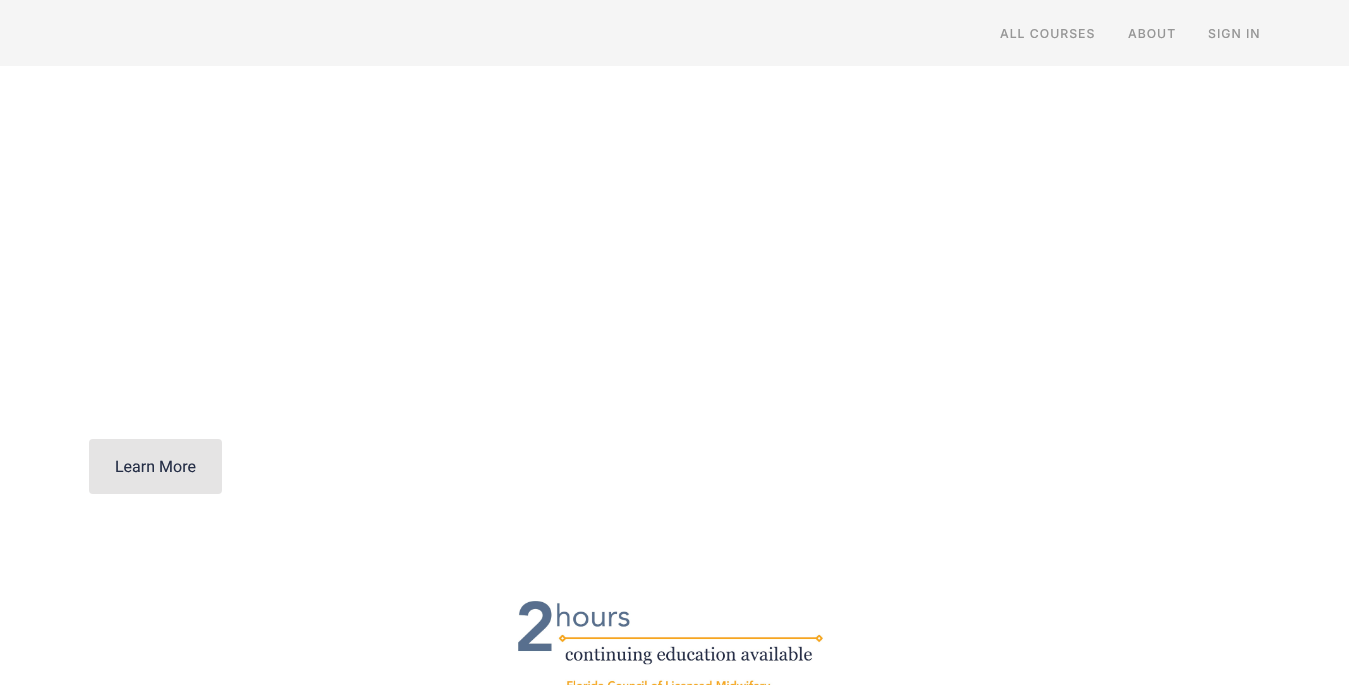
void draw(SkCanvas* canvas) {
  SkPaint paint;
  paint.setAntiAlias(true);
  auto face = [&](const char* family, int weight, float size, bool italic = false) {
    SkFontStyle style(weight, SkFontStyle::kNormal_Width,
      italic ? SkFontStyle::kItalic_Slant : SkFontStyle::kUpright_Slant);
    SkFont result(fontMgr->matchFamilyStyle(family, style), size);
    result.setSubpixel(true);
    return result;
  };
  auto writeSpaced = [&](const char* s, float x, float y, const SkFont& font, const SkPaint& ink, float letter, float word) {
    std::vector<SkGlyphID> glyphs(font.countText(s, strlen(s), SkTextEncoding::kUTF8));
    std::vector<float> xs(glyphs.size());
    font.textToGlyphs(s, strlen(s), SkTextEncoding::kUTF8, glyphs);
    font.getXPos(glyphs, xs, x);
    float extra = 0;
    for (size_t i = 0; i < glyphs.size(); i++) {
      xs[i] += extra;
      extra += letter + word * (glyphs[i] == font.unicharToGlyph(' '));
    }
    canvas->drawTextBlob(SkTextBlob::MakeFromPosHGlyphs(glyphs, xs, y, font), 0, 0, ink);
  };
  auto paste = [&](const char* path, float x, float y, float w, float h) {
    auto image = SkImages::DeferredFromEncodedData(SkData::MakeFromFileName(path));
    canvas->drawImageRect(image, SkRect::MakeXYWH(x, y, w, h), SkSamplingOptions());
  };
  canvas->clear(0xffffffff);
  paint.setColor(0xfff5f5f5);
  canvas->drawRect(SkRect::MakeXYWH(0, 0, 1349, 66), paint);
  paint.setColor(0xffe5e4e4);
  canvas->drawRoundRect(SkRect::MakeXYWH(89, 439, 133, 55), 4, 4, paint);
  paste("img/1.png", 518, 601, 305, 84);
  auto f0 = face("Inter", 500, 12.25f);
  paint.setColor(0xff969696);
  {
    const struct { const char* s; float x, y; } items[] = {
      {"ALL COURSES", 1000, 38},
      {"ABOUT", 1128, 38},
      {"SIGN IN", 1208, 38},
    };
    for (auto [s, x, y] : items) {
      writeSpaced(s, x, y, f0, paint, 1, 0);
    }
  }
  auto f1 = face("Roboto", 400, 16);
  paint.setColor(0xff262f47);
  canvas->drawString("Learn More", 115, 472, f1, paint);
}
